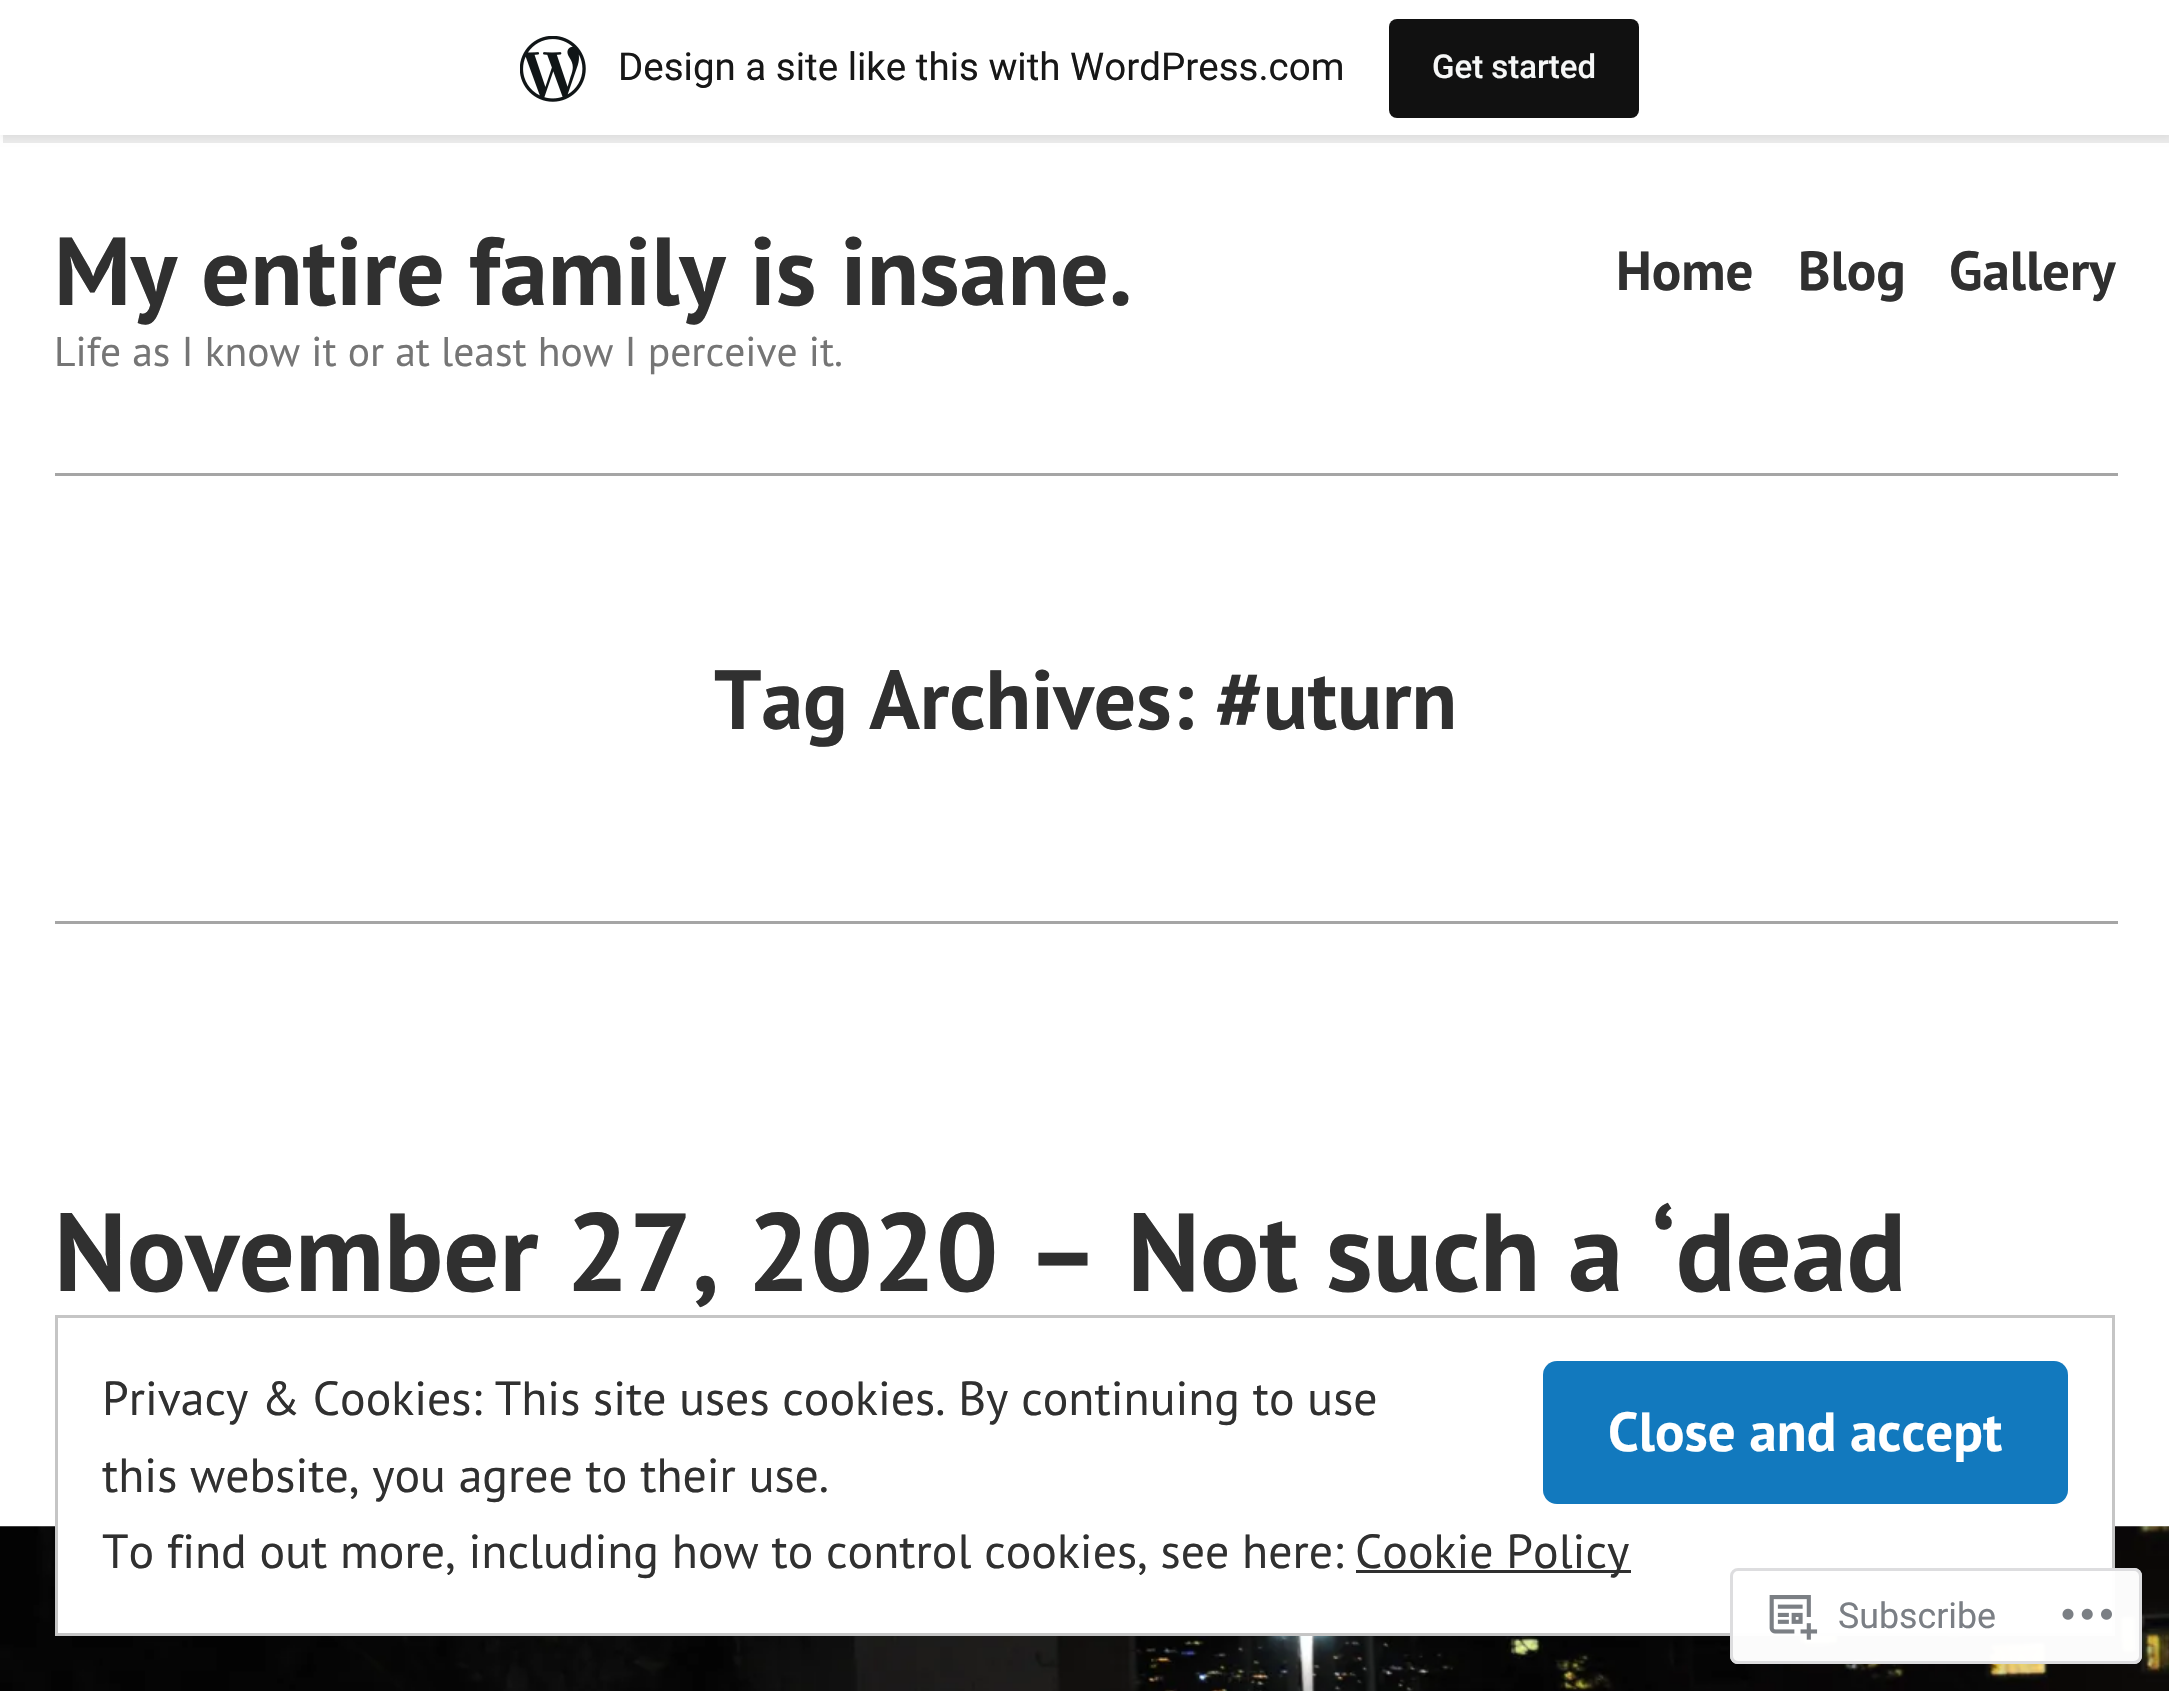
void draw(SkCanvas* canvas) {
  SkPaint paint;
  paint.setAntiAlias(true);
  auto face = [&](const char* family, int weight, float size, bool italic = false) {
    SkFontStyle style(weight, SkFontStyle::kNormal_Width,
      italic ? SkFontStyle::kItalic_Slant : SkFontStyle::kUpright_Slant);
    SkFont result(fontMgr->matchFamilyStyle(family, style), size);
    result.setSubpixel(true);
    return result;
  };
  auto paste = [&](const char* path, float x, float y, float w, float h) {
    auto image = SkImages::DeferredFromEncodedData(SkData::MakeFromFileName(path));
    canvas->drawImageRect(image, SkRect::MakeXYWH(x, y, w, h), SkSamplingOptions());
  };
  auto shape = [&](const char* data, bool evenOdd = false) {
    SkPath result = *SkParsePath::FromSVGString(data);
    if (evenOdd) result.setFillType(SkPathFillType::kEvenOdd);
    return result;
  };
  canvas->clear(0xffffffff);
  paint.setColor(0x0d000000);
  paint.setMaskFilter(SkMaskFilter::MakeBlur(kNormal_SkBlurStyle, 3));
  canvas->drawRect(SkRect::MakeXYWH(0, 3, 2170, 135), paint);
  paint.setMaskFilter(nullptr);
  paint.setColor(0x14000000);
  canvas->drawPath(shape("M3 135V143H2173V8H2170V135Z"), paint);
  paint.setColor(0xffffffff);
  canvas->drawRect(SkRect::MakeXYWH(0, 0, 2169, 135), paint);
  paste("img/1.png", 520, 36, 66, 66);
  paint.setColor(0xff111111);
  canvas->drawRoundRect(SkRect::MakeXYWH(1389, 19, 250, 99), 8, 8, paint);
  paint.setColor(0xffa5a5a5);
  canvas->drawRect(SkRect::MakeXYWH(55, 473, 2063, 3), paint);
  canvas->drawRect(SkRect::MakeXYWH(55, 921, 2063, 3), paint);
  paste("img/2.png", 0, 1526, 2169, 165);
  paint.setColor(0xffffffff);
  canvas->drawRect(SkRect::MakeXYWH(58, 1526, 2054, 107), paint);
  paint.setStroke(true);
  paint.setStrokeWidth(3);
  paint.setColor(0xffc5c5c5);
  canvas->drawRect(SkRect::MakeXYWH(56.5f, 1316.5f, 2057, 318), paint);
  paint.setStroke(false);
  paint.setColor(0xff1279be);
  canvas->drawRoundRect(SkRect::MakeXYWH(1543, 1361, 525, 143), 14, 14, paint);
  paint.setColor(0xff303030);
  canvas->drawRect(SkRect::MakeXYWH(1356, 1570, 275, 3), paint);
  paint.setColor(0xfaffffff);
  canvas->drawRoundRect(SkRect::MakeXYWH(1730, 1568, 412, 96), 8, 8, paint);
  paint.setStroke(true);
  paint.setColor(0xfadcdcde);
  canvas->drawRoundRect(SkRect::MakeXYWH(1731.5f, 1569.5f, 409, 93), 6.5f, 6.5f, paint);
  paste("img/3.png", 1769, 1595, 49, 45);
  paste("img/4.png", 2062, 1608, 50, 12);
  auto f0 = face("Roboto", 400, 38.5f);
  paint.setStroke(false);
  paint.setColor(0xff171717);
  canvas->drawString("Design a site like this with WordPress.com", 618, 80, f0, paint);
  auto f1 = face("Roboto", 500, 33);
  paint.setColor(0xfff6f7f7);
  canvas->drawString("Get started", 1432, 78, f1, paint);
  auto f2 = face("PT Sans", 700, 96.25f);
  paint.setColor(0xff303030);
  canvas->drawString("My entire family is insane.", 54, 305, f2, paint);
  auto f3 = face("PT Sans", 700, 55);
  {
    const struct { const char* s; float x, y; } items[] = {
      {"Home", 1616, 290},
      {"Blog", 1798, 290},
      {"Gallery", 1949, 290},
    };
    for (auto [s, x, y] : items) {
      canvas->drawString(s, x, y, f3, paint);
    }
  }
  auto f4 = face("PT Sans", 400, 41.6f);
  paint.setColor(0xff757575);
  canvas->drawString("Life as I know it or at least how I perceive it.", 54, 366, f4, paint);
  auto f5 = face("PT Sans", 700, 83.75f);
  paint.setColor(0xff303030);
  canvas->drawString("Tag Archives: #uturn", 714, 729, f5, paint);
  auto f6 = face("PT Sans", 700, 110.6f);
  canvas->drawString("November 27, 2020 – Not such a ‘dead", 54, 1291, f6, paint);
  auto f7 = face("PT Sans", 400, 47.8f);
  canvas->drawString("Privacy & Cookies: This site uses cookies. By continuing to use", 102, 1415, f7, paint);
  paint.setColor(0xffffffff);
  canvas->drawString("Close and accept", 1608, 1451, f3, paint);
  paint.setColor(0xff303030);
  {
    const struct { const char* s; float x, y; } items[] = {
      {"this website, you agree to their use.", 102, 1492},
      {"To find out more, including how to control cookies, see here:", 102, 1568},
      {"Cookie Policy", 1355, 1568},
    };
    for (auto [s, x, y] : items) {
      canvas->drawString(s, x, y, f7, paint);
    }
  }
  auto f8 = face("Roboto", 400, 35.75f);
  paint.setColor(0xff7b7f85);
  canvas->drawString("Subscribe", 1838, 1628, f8, paint);
}
